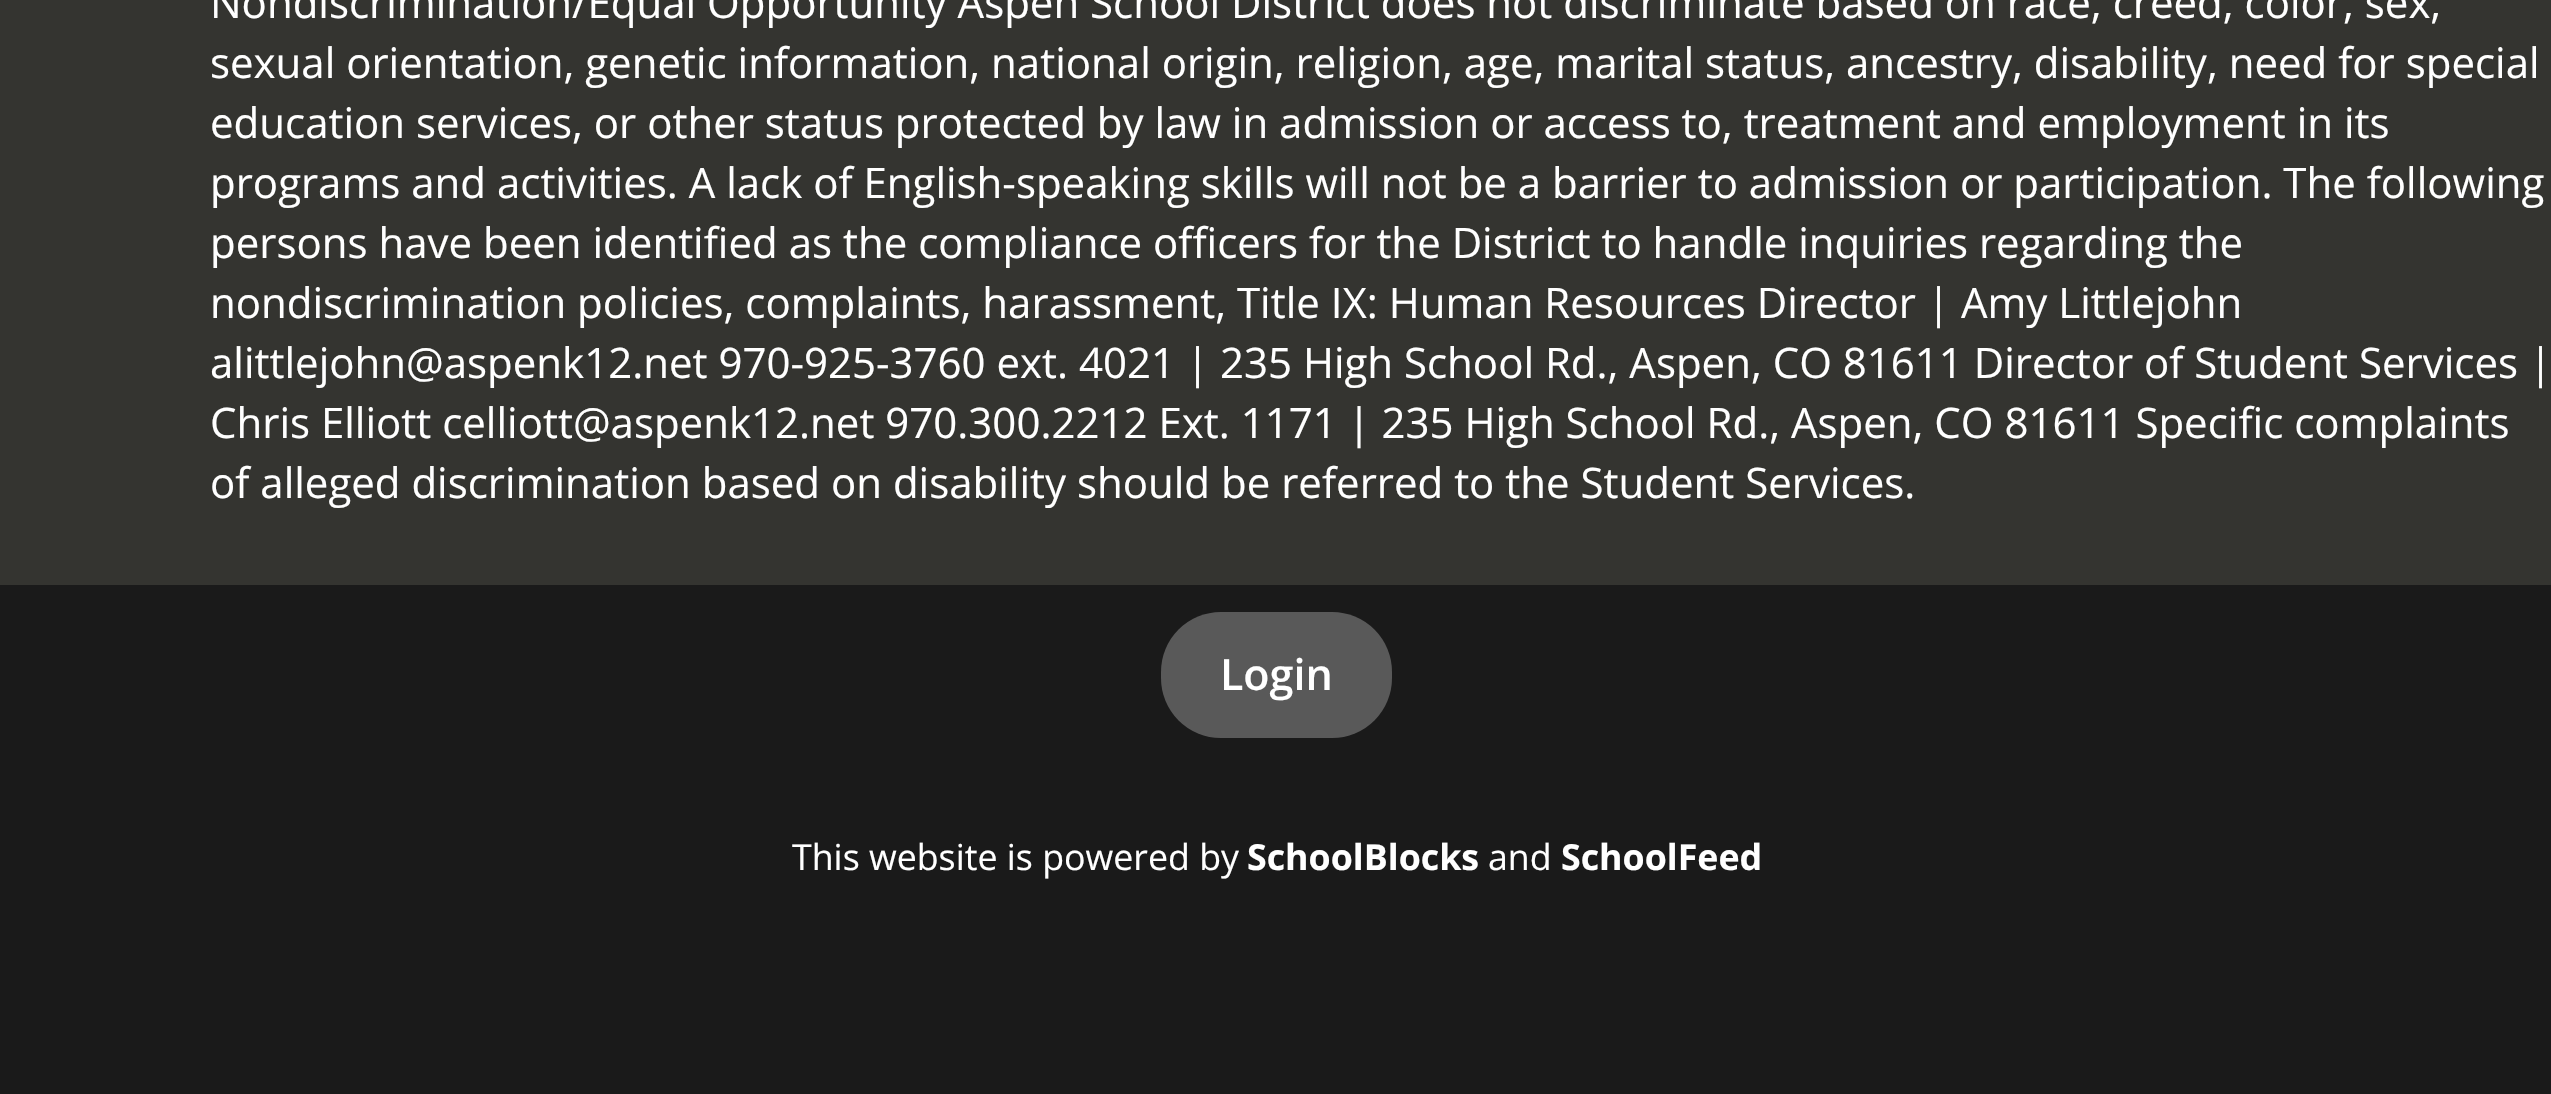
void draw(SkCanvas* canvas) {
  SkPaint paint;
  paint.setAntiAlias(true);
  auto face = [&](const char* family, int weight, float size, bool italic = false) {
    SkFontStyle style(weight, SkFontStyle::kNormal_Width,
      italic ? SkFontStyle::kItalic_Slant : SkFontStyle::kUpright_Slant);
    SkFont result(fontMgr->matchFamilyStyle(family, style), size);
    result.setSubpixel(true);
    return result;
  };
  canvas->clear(0xff343430);
  paint.setColor(0xff1a1a1a);
  canvas->drawRect(SkRect::MakeXYWH(0, 585, 2551, 509), paint);
  paint.setColor(0xff595959);
  canvas->drawRoundRect(SkRect::MakeXYWH(1161, 612, 231, 126), 60, 60, paint);
  auto f0 = face("Open Sans", 400, 42);
  paint.setColor(0xffffffff);
  {
    const struct { const char* s; float x, y; } items[] = {
      {"Nondiscrimination/Equal Opportunity Aspen School District does not discriminate based on race, creed, color, sex,", 210, 18},
      {"sexual orientation, genetic information, national origin, religion, age, marital status, ancestry, disability, need for special", 210, 78},
      {"education services, or other status protected by law in admission or access to, treatment and employment in its", 210, 138},
      {"programs and activities. A lack of English-speaking skills will not be a barrier to admission or participation. The following", 210, 198},
      {"persons have been identified as the compliance officers for the District to handle inquiries regarding the", 210, 258},
      {"nondiscrimination policies, complaints, harassment, Title IX: Human Resources Director | Amy Littlejohn", 210, 318},
      {"alittlejohn@aspenk12.net 970-925-3760 ext. 4021 | 235 High School Rd., Aspen, CO 81611 Director of Student Services |", 210, 378},
      {"Chris Elliott celliott@aspenk12.net 970.300.2212 Ext. 1171 | 235 High School Rd., Aspen, CO 81611 Specific complaints", 210, 438},
      {"of alleged discrimination based on disability should be referred to the Student Services.", 210, 498},
    };
    for (auto [s, x, y] : items) {
      canvas->drawString(s, x, y, f0, paint);
    }
  }
  auto f1 = face("Open Sans", 600, 43);
  canvas->drawString("Login", 1220, 690, f1, paint);
  auto f2 = face("Open Sans", 400, 35.75f);
  canvas->drawString("This website is powered by", 792, 870, f2, paint);
  auto f3 = face("Open Sans", 700, 35.75f);
  canvas->drawString("SchoolBlocks", 1247, 870, f3, paint);
  canvas->drawString("and", 1488, 870, f2, paint);
  canvas->drawString("SchoolFeed", 1561, 870, f3, paint);
}
